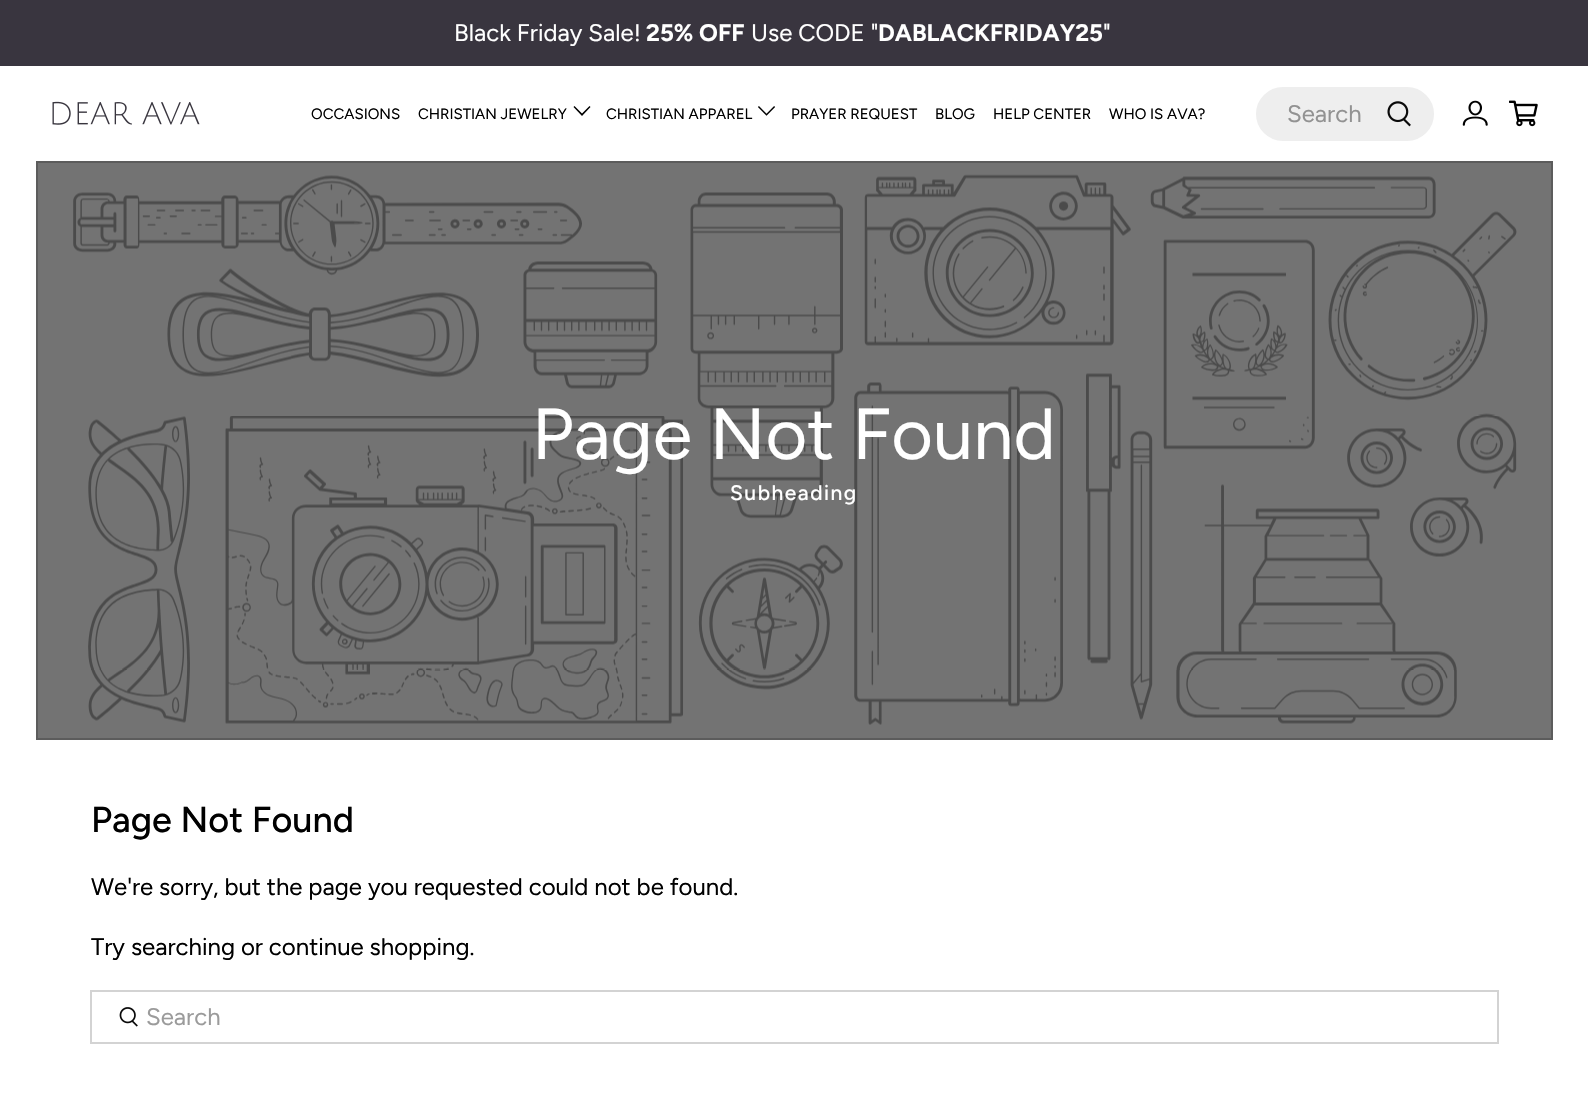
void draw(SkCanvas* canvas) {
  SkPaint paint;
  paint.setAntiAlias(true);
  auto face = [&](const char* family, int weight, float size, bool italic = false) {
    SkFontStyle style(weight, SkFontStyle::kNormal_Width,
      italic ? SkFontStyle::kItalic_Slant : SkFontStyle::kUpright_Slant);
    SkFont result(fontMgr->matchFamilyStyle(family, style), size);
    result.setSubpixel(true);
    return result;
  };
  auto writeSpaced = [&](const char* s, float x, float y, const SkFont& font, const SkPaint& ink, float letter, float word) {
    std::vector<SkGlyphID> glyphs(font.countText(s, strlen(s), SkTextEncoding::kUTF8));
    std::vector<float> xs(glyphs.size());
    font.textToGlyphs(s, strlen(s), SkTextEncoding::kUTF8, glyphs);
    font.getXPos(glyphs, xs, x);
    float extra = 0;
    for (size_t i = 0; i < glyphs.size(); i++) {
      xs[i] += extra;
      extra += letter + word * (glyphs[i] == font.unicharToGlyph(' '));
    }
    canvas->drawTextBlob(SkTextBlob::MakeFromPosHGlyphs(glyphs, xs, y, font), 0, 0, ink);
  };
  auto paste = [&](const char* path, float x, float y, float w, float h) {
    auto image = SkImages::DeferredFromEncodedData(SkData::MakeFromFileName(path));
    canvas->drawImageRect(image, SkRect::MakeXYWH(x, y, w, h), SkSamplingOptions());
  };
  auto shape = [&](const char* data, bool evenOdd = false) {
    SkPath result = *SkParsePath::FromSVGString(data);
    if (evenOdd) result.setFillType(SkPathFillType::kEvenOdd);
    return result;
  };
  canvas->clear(0xffffffff);
  paint.setColor(0xff39353f);
  canvas->drawRect(SkRect::MakeXYWH(0, 0, 1588, 66), paint);
  paste("img/1.png", 52, 101, 148, 24);
  paint.setColor(0xff000000);
  canvas->drawPath(shape("M582 116L573.5 107L574.5 106L582 113.5L589.5 106L590.5 107Z"), paint);
  paste("img/2.png", 758, 106, 17, 10);
  paint.setColor(0xffeeeeee);
  canvas->drawRoundRect(SkRect::MakeXYWH(1257, 88, 176, 52), 26, 26, paint);
  paint.setStroke(true);
  paint.setStrokeWidth(2);
  canvas->drawRoundRect(SkRect::MakeXYWH(1257, 88, 176, 52), 26, 26, paint);
  paste("img/3.png", 1387, 101, 24, 26);
  paste("img/4.png", 1462, 100, 26, 26);
  paste("img/5.png", 1509, 100, 29, 27);
  paint.setStroke(false);
  paint.setColor(0xff737373);
  canvas->drawRect(SkRect::MakeXYWH(37, 162, 1515, 577), paint);
  paint.setStroke(true);
  paint.setColor(0xff5c5c5c);
  canvas->drawRect(SkRect::MakeXYWH(37, 162, 1515, 577), paint);
  paste("img/6.png", 73, 174, 1444, 551);
  paint.setColor(0xffd3d3d3);
  canvas->drawRect(SkRect::MakeXYWH(91, 991, 1407, 52), paint);
  paste("img/7.png", 119, 1007, 19, 20);
  auto f0 = face("Figtree", 400, 24);
  paint.setStroke(false);
  paint.setColor(0xffffffff);
  canvas->drawString("Black Friday Sale!", 454, 41, f0, paint);
  auto f1 = face("Figtree", 700, 24);
  canvas->drawString("25% OFF", 646, 41, f1, paint);
  canvas->drawString("Use CODE \"", 751, 41, f0, paint);
  canvas->drawString("DABLACKFRIDAY25", 878, 41, f1, paint);
  canvas->drawString("\"", 1103, 41, f0, paint);
  auto f2 = face("Figtree", 400, 15);
  paint.setColor(0xff000000);
  {
    const struct { const char* s; float x, y; } items[] = {
      {"OCCASIONS", 311, 119},
      {"CHRISTIAN JEWELRY", 418, 119},
      {"CHRISTIAN APPAREL", 606, 119},
      {"PRAYER REQUEST", 791, 119},
      {"BLOG", 935, 119},
      {"HELP CENTER", 993, 119},
      {"WHO IS AVA?", 1109, 119},
    };
    for (auto [s, x, y] : items) {
      canvas->drawString(s, x, y, f2, paint);
    }
  }
  paint.setColor(0xff929292);
  canvas->drawString("Search", 1287, 122, f0, paint);
  auto f3 = face("Figtree", 400, 72);
  paint.setColor(0xffffffff);
  canvas->drawString("Page Not Found", 532, 459, f3, paint);
  auto f4 = face("Figtree", 500, 21);
  writeSpaced("Subheading", 730, 500, f4, paint, 1.5f, 0);
  auto f5 = face("Figtree", 500, 36);
  paint.setColor(0xff000000);
  canvas->drawString("Page Not Found", 91, 832, f5, paint);
  canvas->drawString("We're sorry, but the page you requested could not be found.", 91, 895, f0, paint);
  canvas->drawString("Try searching or continue shopping.", 91, 955, f0, paint);
  paint.setColor(0xff9b9b9b);
  canvas->drawString("Search", 146, 1025, f0, paint);
}
